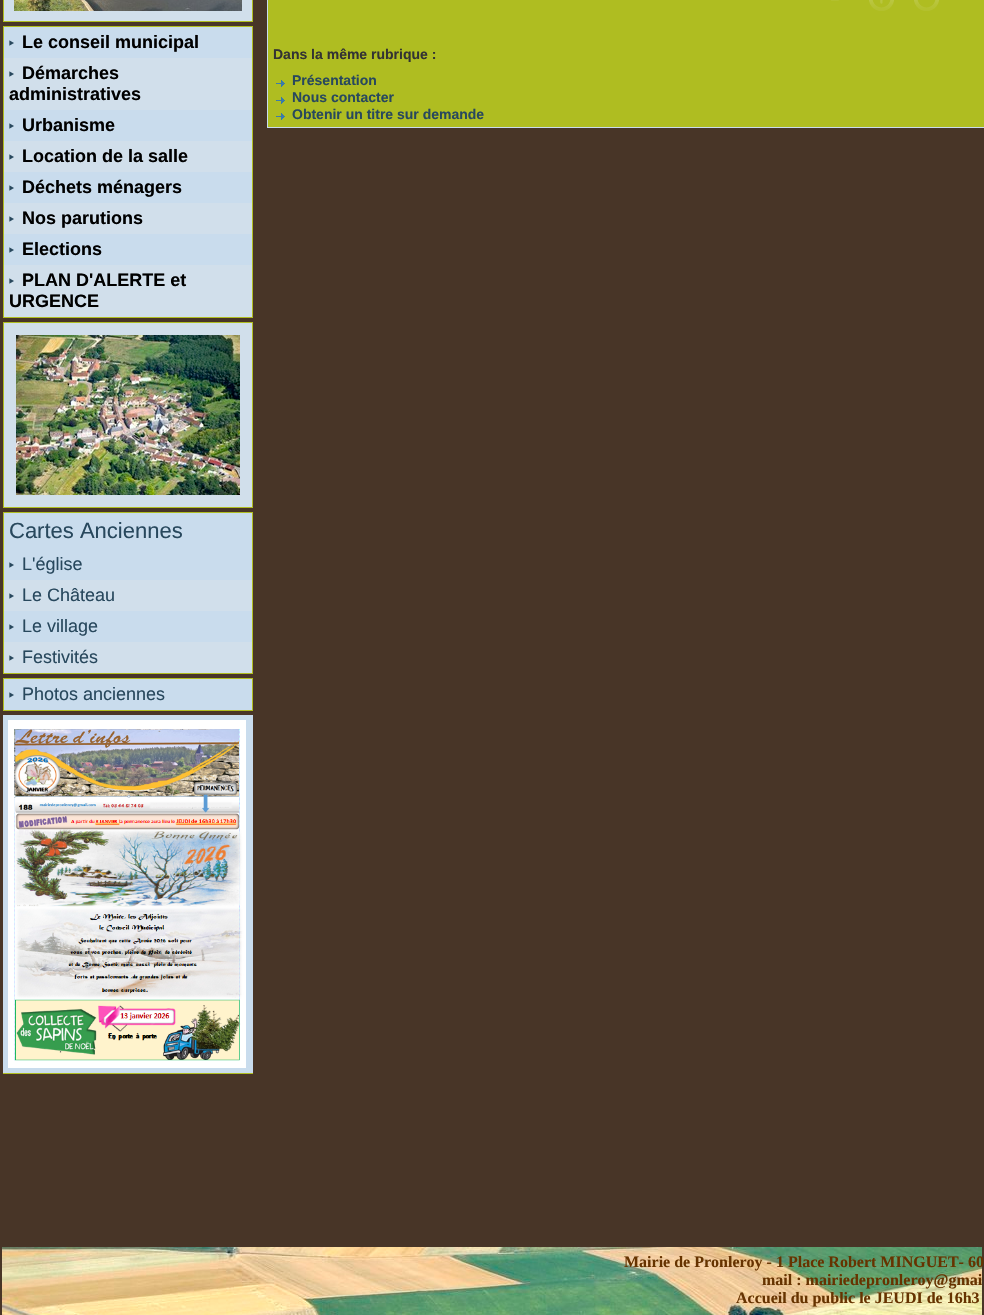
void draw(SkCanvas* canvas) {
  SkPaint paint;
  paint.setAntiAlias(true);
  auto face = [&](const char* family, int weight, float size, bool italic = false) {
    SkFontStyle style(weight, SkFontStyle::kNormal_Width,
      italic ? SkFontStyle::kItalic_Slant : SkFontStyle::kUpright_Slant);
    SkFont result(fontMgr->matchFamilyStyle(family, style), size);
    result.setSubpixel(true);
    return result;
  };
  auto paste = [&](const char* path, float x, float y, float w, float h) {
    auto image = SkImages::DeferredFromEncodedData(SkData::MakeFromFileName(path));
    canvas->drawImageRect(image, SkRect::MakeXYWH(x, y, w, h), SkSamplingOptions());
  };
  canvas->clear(0xff483527);
  {
    const struct { float x, y, w, h; SkColor color; } items[] = {
      {4, 0, 248, 21, 0xffd1dfeb},
      {252, 0, 1, 22, 0xffafbd21},
      {3, 21, 250, 1, 0xffafbd21},
      {3, 0, 1, 22, 0xffafbd21},
    };
    for (auto [x, y, w, h, color] : items) {
      paint.setColor(color);
      canvas->drawRect(SkRect::MakeXYWH(x, y, w, h), paint);
    }
  }
  paste("img/1.png", 14, 0, 228, 11);
  paint.setStroke(true);
  paint.setStrokeWidth(1);
  canvas->drawRect(SkRect::MakeXYWH(3.5f, 26.5f, 249, 291), paint);
  paint.setStroke(false);
  paint.setColor(0xffc9dced);
  canvas->drawRect(SkRect::MakeXYWH(4, 27, 248, 31), paint);
  paste("img/2.png", 9, 40, 5, 6);
  paint.setColor(0xffd1dfeb);
  canvas->drawRect(SkRect::MakeXYWH(4, 58, 248, 52), paint);
  paste("img/3.png", 9, 71, 5, 6);
  paint.setColor(0xffc9dced);
  canvas->drawRect(SkRect::MakeXYWH(4, 110, 248, 31), paint);
  paste("img/2.png", 9, 123, 5, 6);
  paint.setColor(0xffd1dfeb);
  canvas->drawRect(SkRect::MakeXYWH(4, 141, 248, 31), paint);
  paste("img/3.png", 9, 154, 5, 6);
  paint.setColor(0xffc9dced);
  canvas->drawRect(SkRect::MakeXYWH(4, 172, 248, 31), paint);
  paste("img/2.png", 9, 185, 5, 6);
  paint.setColor(0xffd1dfeb);
  canvas->drawRect(SkRect::MakeXYWH(4, 203, 248, 31), paint);
  paste("img/3.png", 9, 216, 5, 6);
  paint.setColor(0xffc9dced);
  canvas->drawRect(SkRect::MakeXYWH(4, 234, 248, 31), paint);
  paste("img/2.png", 9, 247, 5, 6);
  paint.setColor(0xffd1dfeb);
  canvas->drawRect(SkRect::MakeXYWH(4, 265, 248, 52), paint);
  paste("img/3.png", 9, 278, 5, 6);
  paint.setStroke(true);
  paint.setColor(0xffafbd21);
  canvas->drawRect(SkRect::MakeXYWH(3.5f, 322.5f, 249, 185), paint);
  paint.setStroke(false);
  paint.setColor(0xffd1dfeb);
  canvas->drawRect(SkRect::MakeXYWH(4, 323, 248, 184), paint);
  paste("img/4.png", 16, 335, 224, 160);
  paint.setStroke(true);
  paint.setColor(0xffafbd21);
  canvas->drawRect(SkRect::MakeXYWH(3.5f, 512.5f, 249, 161), paint);
  paint.setStroke(false);
  paint.setColor(0xffc9dced);
  canvas->drawRect(SkRect::MakeXYWH(4, 513, 248, 67), paint);
  paste("img/2.png", 9, 562, 5, 6);
  paint.setColor(0xffd1dfeb);
  canvas->drawRect(SkRect::MakeXYWH(4, 580, 248, 31), paint);
  paste("img/3.png", 9, 593, 5, 6);
  paint.setColor(0xffc9dced);
  canvas->drawRect(SkRect::MakeXYWH(4, 611, 248, 31), paint);
  paste("img/2.png", 9, 624, 5, 6);
  paint.setColor(0xffd1dfeb);
  canvas->drawRect(SkRect::MakeXYWH(4, 642, 248, 31), paint);
  paste("img/3.png", 9, 655, 5, 6);
  paint.setStroke(true);
  paint.setColor(0xffafbd21);
  canvas->drawRect(SkRect::MakeXYWH(3.5f, 678.5f, 249, 32), paint);
  paint.setStroke(false);
  paint.setColor(0xffc9dced);
  canvas->drawRect(SkRect::MakeXYWH(4, 679, 248, 31), paint);
  paste("img/2.png", 9, 692, 5, 6);
  canvas->drawRect(SkRect::MakeXYWH(3, 715, 250, 358), paint);
  paint.setColor(0xffb0bd21);
  canvas->drawRect(SkRect::MakeXYWH(3, 1073, 250, 1), paint);
  paste("img/5.png", 8, 720, 238, 348);
  paint.setStroke(true);
  paint.setColor(0xffc9dced);
  canvas->drawRect(SkRect::MakeXYWH(267.5f, -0.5f, 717, 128), paint);
  paint.setStroke(false);
  paint.setColor(0xffafbd21);
  canvas->drawRect(SkRect::MakeXYWH(268, 0, 716, 127), paint);
  paste("img/6.png", 831, 0, 8, 1);
  paste("img/7.png", 869, 0, 25, 11);
  paste("img/8.png", 914, 0, 25, 11);
  paste("img/9.png", 276, 80, 9, 7);
  paste("img/9.png", 276, 97, 9, 7);
  paste("img/9.png", 276, 113, 9, 7);
  paste("img/10.png", 2, 1247, 980, 68);
  auto f0 = face("Liberation Sans", 700, 18);
  paint.setColor(0xff000000);
  {
    const struct { const char* s; float x, y; } items[] = {
      {"Le conseil municipal", 22, 48},
      {"Démarches", 22, 79},
      {"administratives", 9, 100},
      {"Urbanisme", 22, 131},
      {"Location de la salle", 22, 162},
      {"Déchets ménagers", 22, 193},
      {"Nos parutions", 22, 224},
      {"Elections", 22, 255},
      {"PLAN D'ALERTE et", 22, 286},
      {"URGENCE", 9, 307},
    };
    for (auto [s, x, y] : items) {
      canvas->drawString(s, x, y, f0, paint);
    }
  }
  auto f1 = face("Liberation Sans", 400, 22);
  paint.setColor(0xff28485d);
  canvas->drawString("Cartes Anciennes", 9, 538, f1, paint);
  auto f2 = face("Liberation Sans", 400, 18);
  {
    const struct { const char* s; float x, y; } items[] = {
      {"L'église", 22, 570},
      {"Le Château", 22, 601},
      {"Le village", 22, 632},
      {"Festivités", 22, 663},
      {"Photos anciennes", 22, 700},
    };
    for (auto [s, x, y] : items) {
      canvas->drawString(s, x, y, f2, paint);
    }
  }
  auto f3 = face("Liberation Sans", 700, 14);
  paint.setColor(0xff333333);
  canvas->drawString("Dans la même rubrique :", 273, 59, f3, paint);
  paint.setColor(0xff28485d);
  {
    const struct { const char* s; float x, y; } items[] = {
      {"Présentation", 292, 85},
      {"Nous contacter", 292, 102},
      {"Obtenir un titre sur demande", 292, 119},
    };
    for (auto [s, x, y] : items) {
      canvas->drawString(s, x, y, f3, paint);
    }
  }
  auto f4 = face("Liberation Serif", 700, 16);
  paint.setColor(0xff663300);
  {
    const struct { const char* s; float x, y; } items[] = {
      {"Mairie de Pronleroy - 1 Place Robert MINGUET- 60", 624, 1267},
      {"mail : mairiedepronleroy@gmai", 762, 1285},
      {"Accueil du public le JEUDI de 16h3", 736, 1303},
    };
    for (auto [s, x, y] : items) {
      canvas->drawString(s, x, y, f4, paint);
    }
  }
}
